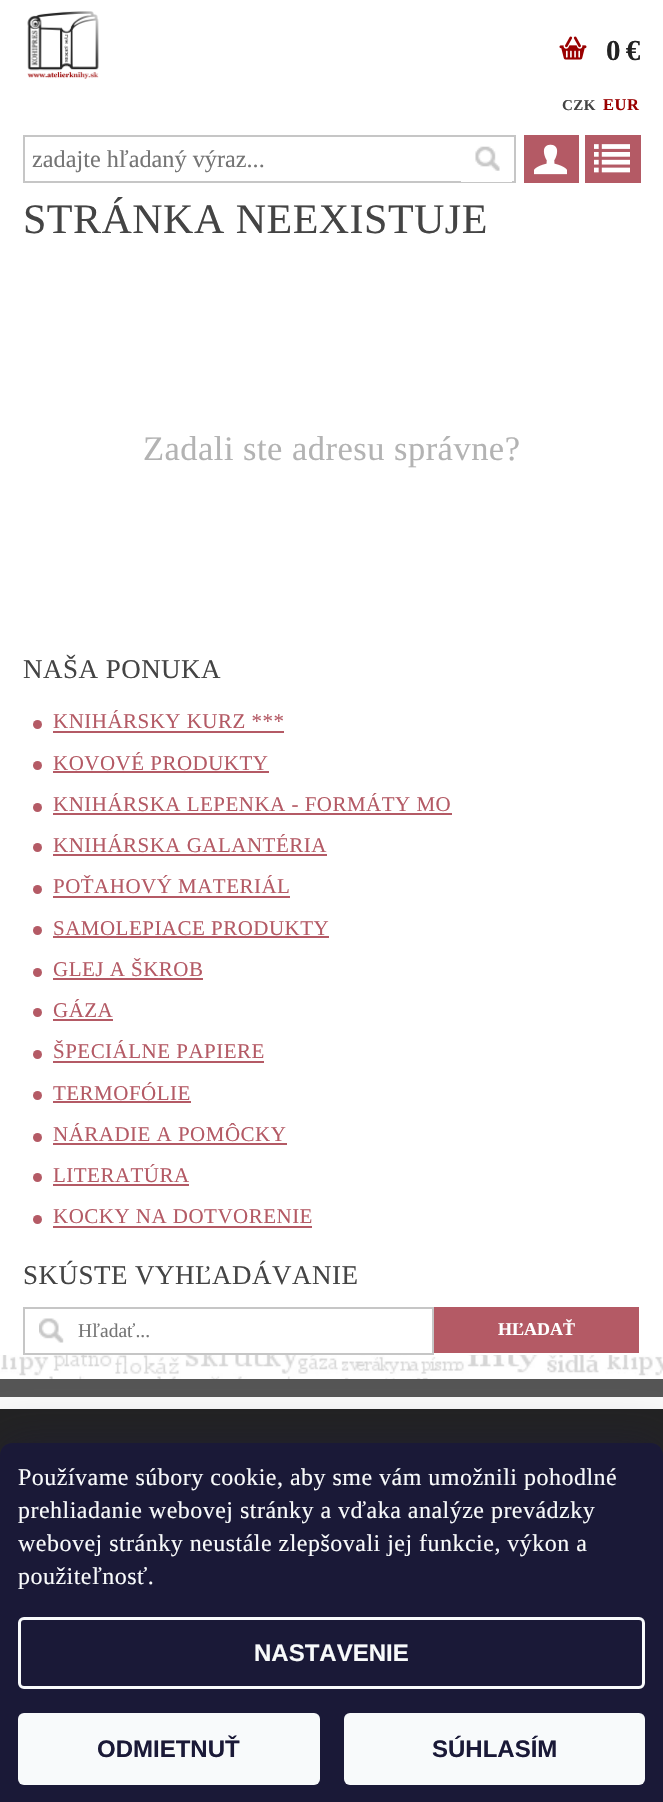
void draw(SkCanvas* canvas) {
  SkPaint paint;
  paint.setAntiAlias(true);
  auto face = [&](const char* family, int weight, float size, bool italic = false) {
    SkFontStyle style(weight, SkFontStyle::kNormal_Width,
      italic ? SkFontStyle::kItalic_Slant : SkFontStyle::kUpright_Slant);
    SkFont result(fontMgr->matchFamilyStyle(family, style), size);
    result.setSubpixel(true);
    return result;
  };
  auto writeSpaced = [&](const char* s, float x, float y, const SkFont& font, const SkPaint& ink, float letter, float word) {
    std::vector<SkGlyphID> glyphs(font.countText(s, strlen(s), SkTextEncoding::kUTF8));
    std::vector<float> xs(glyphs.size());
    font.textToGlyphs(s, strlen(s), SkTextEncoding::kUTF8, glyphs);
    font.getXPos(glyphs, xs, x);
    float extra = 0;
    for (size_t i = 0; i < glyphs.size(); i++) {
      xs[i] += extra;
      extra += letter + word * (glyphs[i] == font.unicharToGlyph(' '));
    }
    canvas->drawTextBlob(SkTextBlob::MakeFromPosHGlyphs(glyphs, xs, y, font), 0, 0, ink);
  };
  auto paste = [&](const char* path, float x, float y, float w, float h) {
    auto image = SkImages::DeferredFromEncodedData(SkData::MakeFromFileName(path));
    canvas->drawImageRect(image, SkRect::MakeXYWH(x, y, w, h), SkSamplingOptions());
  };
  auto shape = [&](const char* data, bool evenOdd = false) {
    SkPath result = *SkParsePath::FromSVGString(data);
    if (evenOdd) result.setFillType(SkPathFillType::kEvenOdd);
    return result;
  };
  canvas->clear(0xffffffff);
  paste("img/1.png", 0, 1355, 663, 24);
  paste("img/2.png", 27, 11, 72, 68);
  paste("img/3.png", 559, 36, 28, 24);
  paint.setColor(0xffb45a65);
  canvas->drawRect(SkRect::MakeXYWH(524, 135, 55, 48), paint);
  paste("img/4.png", 534, 144, 33, 31);
  paint.setStroke(true);
  paint.setStrokeWidth(2);
  paint.setColor(0xffc6c6c6);
  canvas->drawRect(SkRect::MakeXYWH(24, 136, 491, 46), paint);
  paint.setStroke(false);
  paint.setColor(0xffffffff);
  canvas->drawRect(SkRect::MakeXYWH(461, 181, 51, 1), paint);
  paste("img/5.png", 475, 146, 25, 25);
  paint.setColor(0xffb45a65);
  canvas->drawRect(SkRect::MakeXYWH(585, 135, 56, 48), paint);
  paste("img/6.png", 594, 144, 36, 29);
  canvas->drawCircle(37.5f, 724.5f, 4.5f, paint);
  canvas->drawRect(SkRect::MakeXYWH(53, 731, 231, 2), paint);
  canvas->drawCircle(37.5f, 765.5f, 4.5f, paint);
  canvas->drawRect(SkRect::MakeXYWH(53, 771, 216, 2), paint);
  canvas->drawCircle(37.5f, 807.5f, 4.5f, paint);
  canvas->drawRect(SkRect::MakeXYWH(53, 813, 399, 2), paint);
  canvas->drawCircle(37.5f, 847.5f, 4.5f, paint);
  canvas->drawRect(SkRect::MakeXYWH(53, 854, 274, 2), paint);
  canvas->drawCircle(37.5f, 889.5f, 4.5f, paint);
  canvas->drawRect(SkRect::MakeXYWH(53, 896, 237, 2), paint);
  canvas->drawCircle(37.5f, 930.5f, 4.5f, paint);
  canvas->drawRect(SkRect::MakeXYWH(53, 936, 276, 2), paint);
  canvas->drawCircle(37.5f, 972.5f, 4.5f, paint);
  canvas->drawRect(SkRect::MakeXYWH(53, 978, 150, 2), paint);
  canvas->drawCircle(37.5f, 1012.5f, 4.5f, paint);
  canvas->drawRect(SkRect::MakeXYWH(53, 1019, 60, 2), paint);
  canvas->drawCircle(37.5f, 1054.5f, 4.5f, paint);
  canvas->drawRect(SkRect::MakeXYWH(53, 1061, 211, 2), paint);
  canvas->drawCircle(37.5f, 1095.5f, 4.5f, paint);
  canvas->drawRect(SkRect::MakeXYWH(53, 1101, 138, 2), paint);
  canvas->drawCircle(37.5f, 1137.5f, 4.5f, paint);
  canvas->drawRect(SkRect::MakeXYWH(53, 1143, 234, 2), paint);
  canvas->drawCircle(37.5f, 1177.5f, 4.5f, paint);
  canvas->drawRect(SkRect::MakeXYWH(53, 1184, 136, 2), paint);
  canvas->drawCircle(37.5f, 1219.5f, 4.5f, paint);
  canvas->drawRect(SkRect::MakeXYWH(53, 1226, 259, 2), paint);
  paste("img/7.png", 39, 1318, 25, 25);
  paint.setStroke(true);
  paint.setColor(0xffc6c6c6);
  canvas->drawRect(SkRect::MakeXYWH(24, 1308, 409, 46), paint);
  paint.setStroke(false);
  {
    const struct { float x, y, w, h; SkColor color; } items[] = {
      {434, 1307, 205, 46, 0xffb45a65},
      {0, 1397, 663, 12, 0xfff8f8f8},
      {0, 1379, 663, 18, 0xff555555},
      {0, 1409, 663, 46, 0xff222222},
    };
    for (auto [x, y, w, h, color] : items) {
      paint.setColor(color);
      canvas->drawRect(SkRect::MakeXYWH(x, y, w, h), paint);
    }
  }
  paint.setColor(0x801b1939);
  paint.setMaskFilter(SkMaskFilter::MakeBlur(kNormal_SkBlurStyle, 22.5f));
  canvas->drawRoundRect(SkRect::MakeXYWH(0, 1443, 663, 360), 12, 12, paint);
  paint.setMaskFilter(nullptr);
  paint.setColor(0xff1a1937);
  canvas->drawPath(shape("M12 1443H651C657.5 1443 663 1448.5 663 1455V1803H0V1455C0 1448.5 5.5 1443 12 1443Z"), paint);
  paint.setStroke(true);
  paint.setStrokeWidth(3);
  paint.setColor(0xfff8fafb);
  canvas->drawRoundRect(SkRect::MakeXYWH(19.5f, 1618.5f, 624, 69), 4.5f, 4.5f, paint);
  paint.setStroke(false);
  canvas->drawRoundRect(SkRect::MakeXYWH(18, 1713, 302, 72), 6, 6, paint);
  canvas->drawRoundRect(SkRect::MakeXYWH(344, 1713, 301, 72), 6, 6, paint);
  auto f0 = face("Liberation Serif", 700, 29);
  paint.setColor(0xff222222);
  writeSpaced("0 €", 606, 60, f0, paint, -1, 0);
  auto f1 = face("Liberation Serif", 700, 15);
  paint.setColor(0xff444444);
  writeSpaced("CZK", 562, 110, f1, paint, 0.48f, 0);
  auto f2 = face("Liberation Serif", 700, 16.5f);
  paint.setColor(0xff9a0000);
  writeSpaced("EUR", 603, 110, f2, paint, 0.48f, 0);
  auto f3 = face("Liberation Serif", 400, 24.25f);
  paint.setColor(0xff757575);
  canvas->drawString("zadajte hľadaný výraz...", 32, 167, f3, paint);
  auto f4 = face("Liberation Serif", 400, 42);
  paint.setColor(0xff444444);
  writeSpaced("STRÁNKA NEEXISTUJE", 23, 233, f4, paint, 0.48f, 0);
  auto f5 = face("Liberation Serif", 400, 34.5f);
  paint.setColor(0xffb3b3b3);
  writeSpaced("Zadali ste adresu správne?", 143, 460, f5, paint, 0.48f, 0);
  auto f6 = face("Liberation Serif", 400, 27);
  paint.setColor(0xff444444);
  writeSpaced("NAŠA PONUKA", 23, 678, f6, paint, 0.48f, 0);
  auto f7 = face("Liberation Serif", 400, 21);
  paint.setColor(0xffb45a65);
  {
    const struct { const char* s; float x, y; } items[] = {
      {"KNIHÁRSKY KURZ ***", 53, 728},
      {"KOVOVÉ PRODUKTY", 53, 770},
      {"KNIHÁRSKA LEPENKA - FORMÁTY MO", 53, 811},
      {"KNIHÁRSKA GALANTÉRIA", 53, 852},
      {"POŤAHOVÝ MATERIÁL", 53, 893},
      {"SAMOLEPIACE PRODUKTY", 53, 935},
      {"GLEJ A ŠKROB", 53, 976},
      {"GÁZA", 53, 1017},
      {"ŠPECIÁLNE PAPIERE", 53, 1058},
      {"TERMOFÓLIE", 53, 1100},
      {"NÁRADIE A POMÔCKY", 53, 1141},
      {"LITERATÚRA", 53, 1182},
      {"KOCKY NA DOTVORENIE", 53, 1223},
    };
    for (auto [s, x, y] : items) {
      writeSpaced(s, x, y, f7, paint, 0.48f, 0);
    }
  }
  paint.setColor(0xff444444);
  writeSpaced("SKÚSTE VYHĽADÁVANIE", 23, 1284, f6, paint, 0.48f, 0);
  auto f8 = face("Liberation Serif", 400, 19.5f);
  paint.setColor(0xff757575);
  canvas->drawString("Hľadať...", 78, 1337, f8, paint);
  auto f9 = face("Liberation Serif", 700, 18);
  paint.setColor(0xffffffff);
  canvas->drawString("HĽADAŤ", 498, 1335, f9, paint);
  auto f10 = face("Liberation Serif", 400, 24);
  paint.setColor(0xfff8fafb);
  {
    const struct { const char* s; float x, y; } items[] = {
      {"Používame súbory cookie, aby sme vám umožnili pohodlné", 18, 1485},
      {"prehliadanie webovej stránky a vďaka analýze prevádzky", 18, 1518},
      {"webovej stránky neustále zlepšovali jej funkcie, výkon a", 18, 1551},
      {"použiteľnosť.", 18, 1584},
    };
    for (auto [s, x, y] : items) {
      writeSpaced(s, x, y, f10, paint, 0.48f, 0);
    }
  }
  auto f11 = face("Liberation Sans", 700, 24);
  canvas->drawString("NASTAVENIE", 254, 1661, f11, paint);
  paint.setColor(0xff1a1937);
  canvas->drawString("ODMIETNUŤ", 97, 1757, f11, paint);
  canvas->drawString("SÚHLASÍM", 432, 1757, f11, paint);
}
